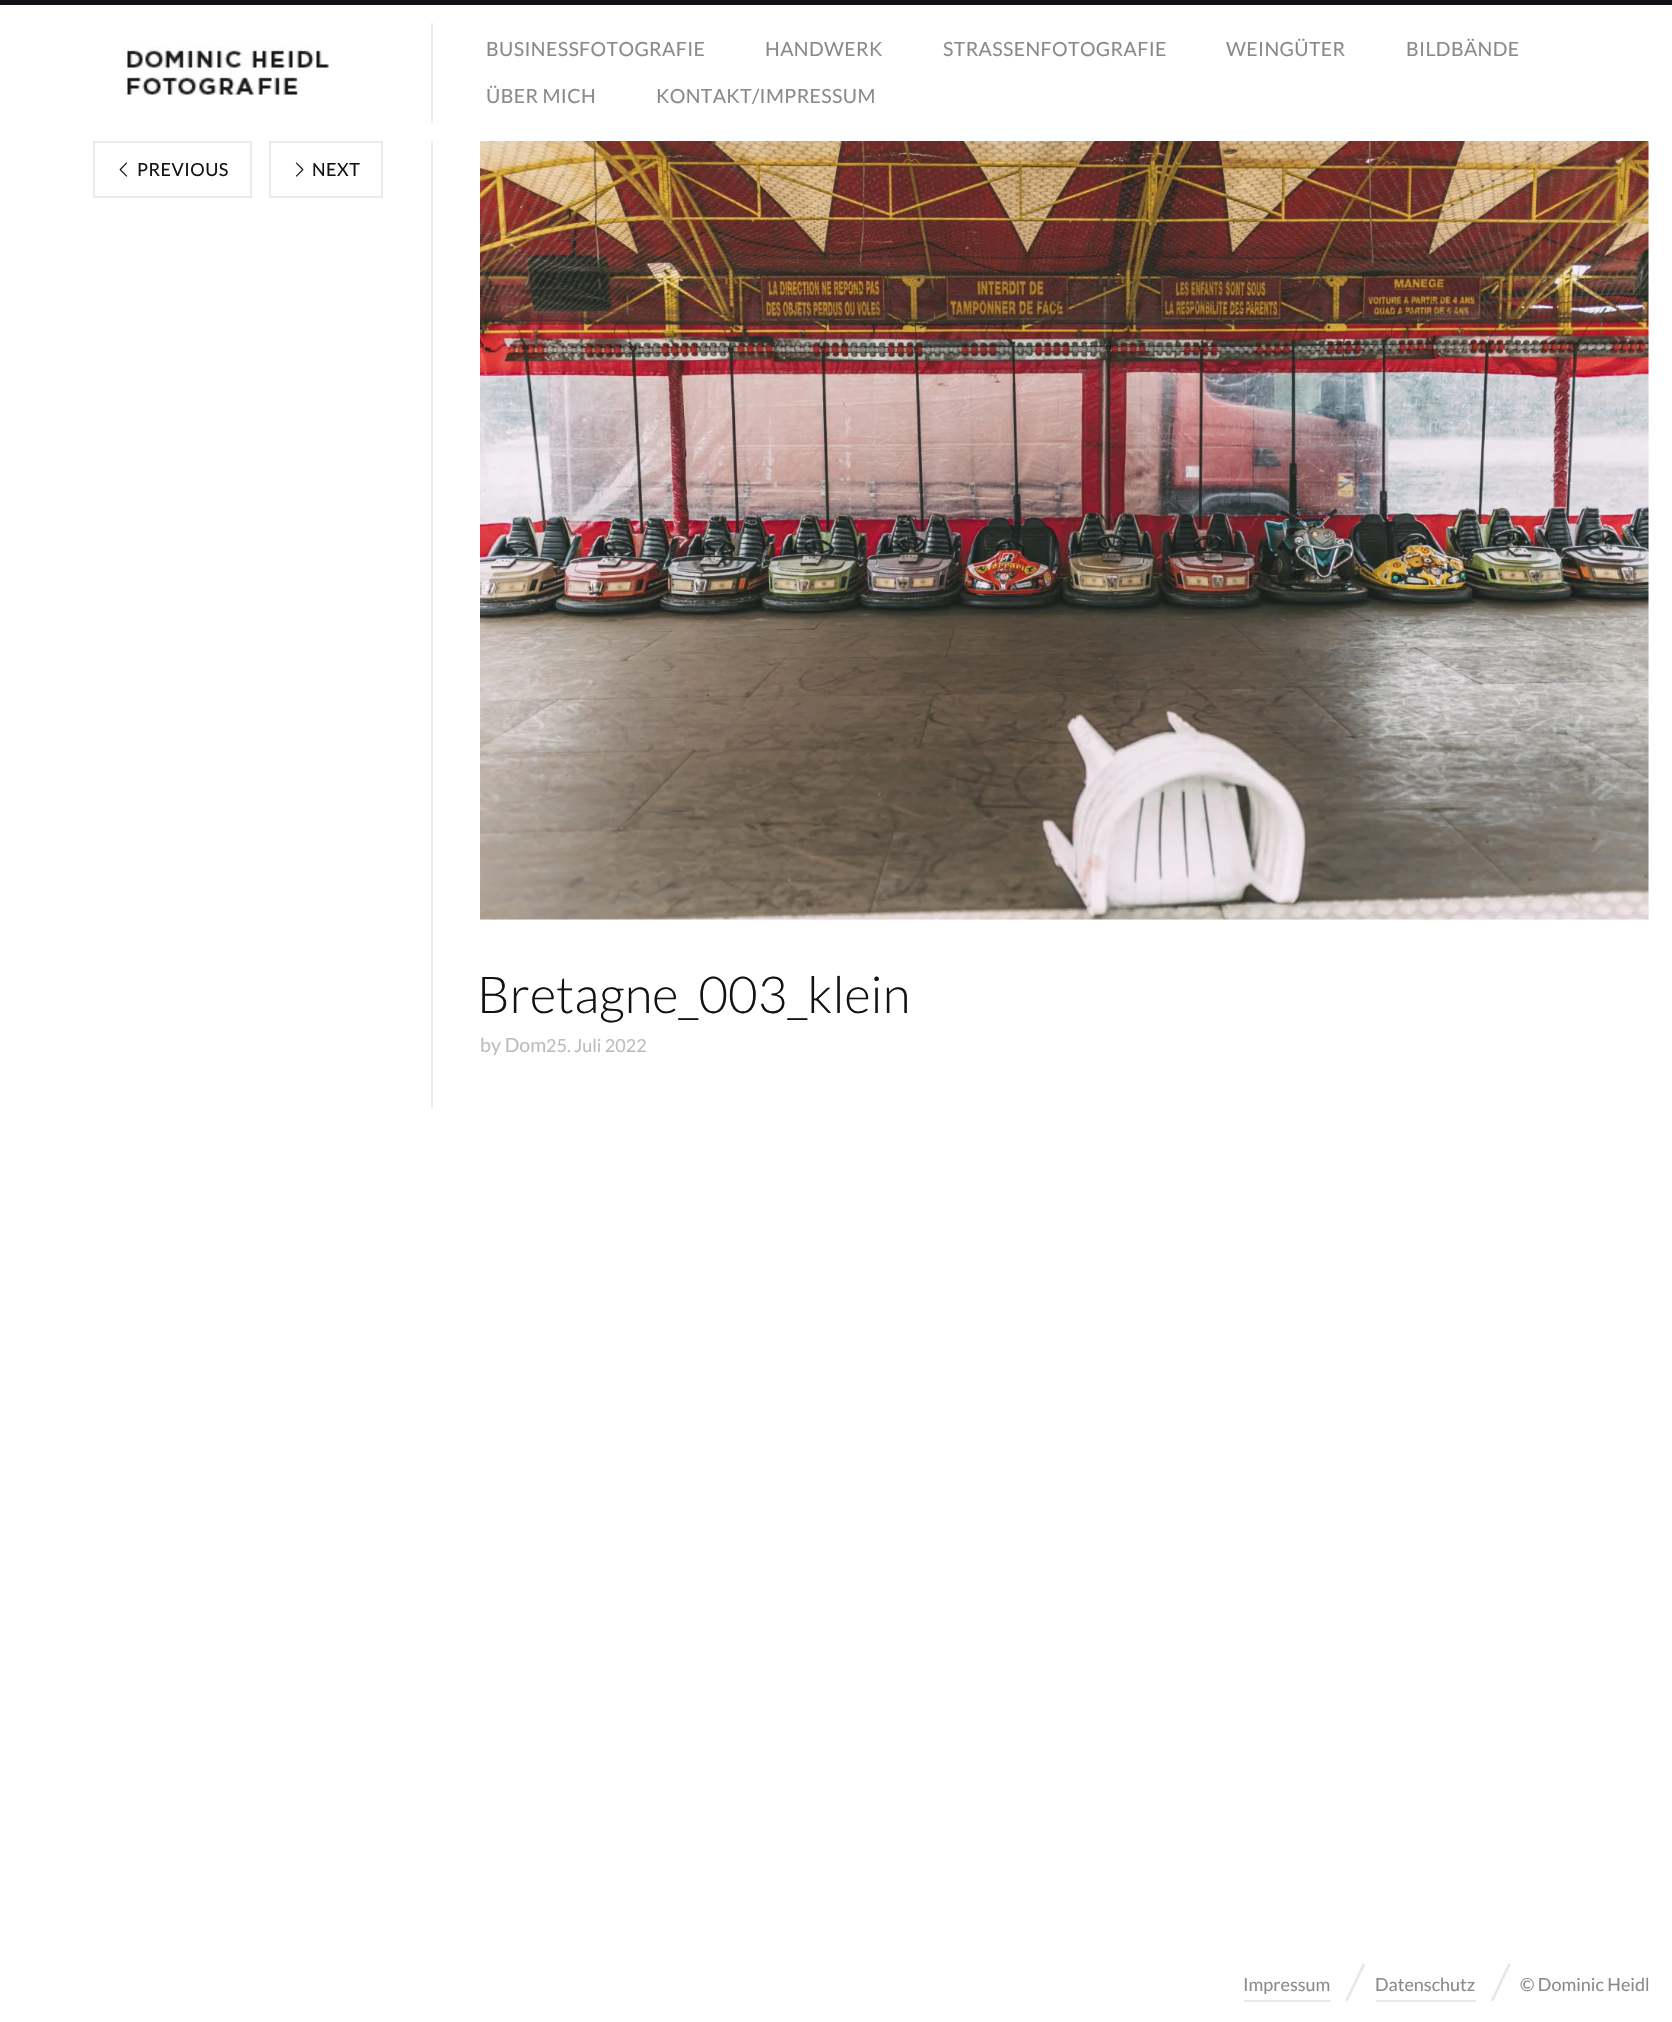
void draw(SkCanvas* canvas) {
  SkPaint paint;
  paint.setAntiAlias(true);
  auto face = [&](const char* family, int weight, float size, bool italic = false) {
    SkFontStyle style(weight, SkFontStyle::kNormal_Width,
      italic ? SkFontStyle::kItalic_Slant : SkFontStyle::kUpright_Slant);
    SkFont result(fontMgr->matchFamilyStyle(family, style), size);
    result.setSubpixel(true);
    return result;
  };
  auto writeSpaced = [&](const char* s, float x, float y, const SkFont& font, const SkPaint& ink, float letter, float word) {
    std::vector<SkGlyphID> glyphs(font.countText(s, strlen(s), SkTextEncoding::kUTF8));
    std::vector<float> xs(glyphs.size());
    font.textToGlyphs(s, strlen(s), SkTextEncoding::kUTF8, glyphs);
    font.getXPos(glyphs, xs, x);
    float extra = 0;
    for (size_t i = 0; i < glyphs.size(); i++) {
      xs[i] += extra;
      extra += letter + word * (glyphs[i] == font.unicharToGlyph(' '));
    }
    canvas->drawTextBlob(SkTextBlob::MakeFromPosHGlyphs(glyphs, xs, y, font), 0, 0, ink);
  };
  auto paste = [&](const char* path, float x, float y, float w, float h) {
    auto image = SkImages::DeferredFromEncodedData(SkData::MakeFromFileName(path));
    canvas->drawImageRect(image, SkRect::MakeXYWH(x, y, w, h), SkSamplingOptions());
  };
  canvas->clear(0xffffffff);
  paint.setColor(0xff111116);
  canvas->drawRect(SkRect::MakeXYWH(0, 0, 1672, 5), paint);
  paint.setColor(0xffebebeb);
  canvas->drawRect(SkRect::MakeXYWH(431, 23, 2, 100), paint);
  paste("img/1.png", 123, 46, 206, 49);
  canvas->drawRect(SkRect::MakeXYWH(431, 141, 2, 968), paint);
  paint.setStroke(true);
  paint.setStrokeWidth(2);
  canvas->drawRect(SkRect::MakeXYWH(94, 142, 157, 55), paint);
  paste("img/2.png", 119, 162, 9, 15);
  canvas->drawRect(SkRect::MakeXYWH(270, 142, 112, 55), paint);
  paste("img/3.png", 295, 162, 9, 15);
  paint.setStroke(false);
  paint.setColor(0xfff9f9f9);
  canvas->drawRect(SkRect::MakeXYWH(480, 141, 1169, 779), paint);
  paste("img/4.png", 480, 141, 1169, 779);
  paint.setColor(0xffebebeb);
  canvas->drawRect(SkRect::MakeXYWH(1244, 2000, 87, 2), paint);
  paste("img/5.png", 1345, 1963, 20, 39);
  canvas->drawRect(SkRect::MakeXYWH(1376, 2000, 100, 2), paint);
  paste("img/6.png", 1491, 1963, 20, 39);
  auto f0 = face("Lato", 400, 19.5f);
  paint.setColor(0xff8a8a8a);
  {
    const struct { const char* s; float x, y; } items[] = {
      {"BUSINESSFOTOGRAFIE", 486, 56},
      {"HANDWERK", 765, 56},
      {"STRASSENFOTOGRAFIE", 943, 56},
      {"WEINGÜTER", 1226, 56},
      {"BILDBÄNDE", 1406, 56},
      {"ÜBER MICH", 486, 103},
      {"KONTAKT/IMPRESSUM", 656, 103},
    };
    for (auto [s, x, y] : items) {
      writeSpaced(s, x, y, f0, paint, 0.4f, 0);
    }
  }
  auto f1 = face("Lato", 400, 18);
  paint.setColor(0xff111116);
  writeSpaced("PREVIOUS", 137, 176, f1, paint, 0.5f, 0);
  writeSpaced("NEXT", 312, 176, f1, paint, 0.5f, 0);
  auto f2 = face("Lato", 300, 51);
  canvas->drawString("Bretagne_003_klein", 477, 1013, f2, paint);
  paint.setColor(0xffbdbdbd);
  canvas->drawString("by Dom", 480, 1052, f0, paint);
  canvas->drawString("25. Juli 2022", 546, 1052, f1, paint);
  paint.setColor(0xff8a8a8a);
  {
    const struct { const char* s; float x, y; } items[] = {
      {"Impressum", 1243, 1991},
      {"Datenschutz", 1375, 1991},
      {"© Dominic Heidl", 1520, 1991},
    };
    for (auto [s, x, y] : items) {
      canvas->drawString(s, x, y, f1, paint);
    }
  }
}
